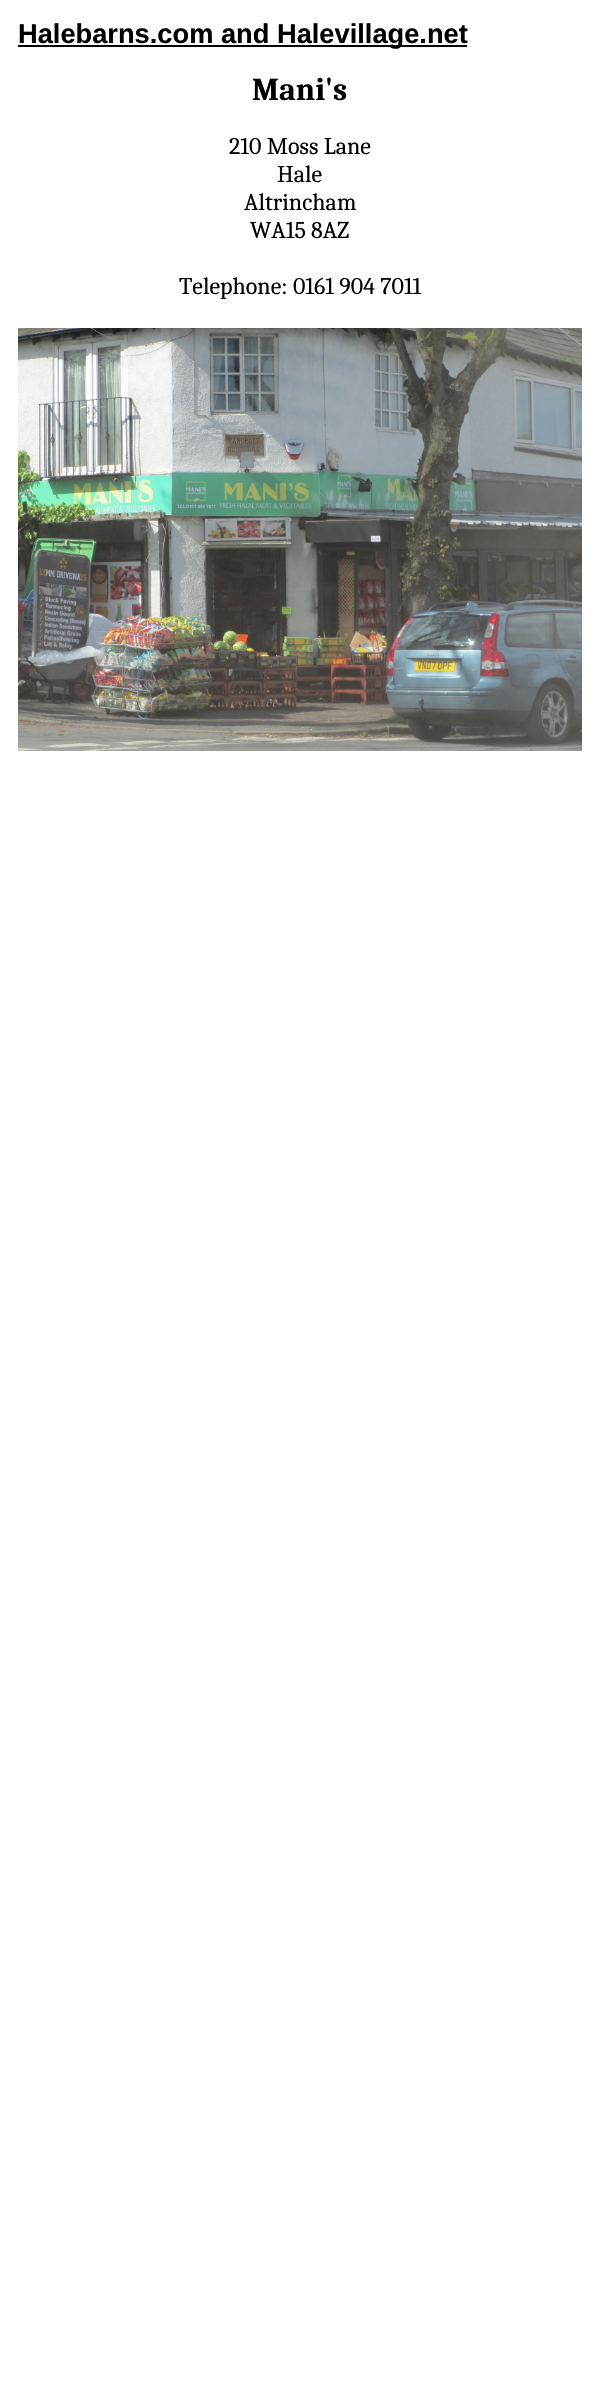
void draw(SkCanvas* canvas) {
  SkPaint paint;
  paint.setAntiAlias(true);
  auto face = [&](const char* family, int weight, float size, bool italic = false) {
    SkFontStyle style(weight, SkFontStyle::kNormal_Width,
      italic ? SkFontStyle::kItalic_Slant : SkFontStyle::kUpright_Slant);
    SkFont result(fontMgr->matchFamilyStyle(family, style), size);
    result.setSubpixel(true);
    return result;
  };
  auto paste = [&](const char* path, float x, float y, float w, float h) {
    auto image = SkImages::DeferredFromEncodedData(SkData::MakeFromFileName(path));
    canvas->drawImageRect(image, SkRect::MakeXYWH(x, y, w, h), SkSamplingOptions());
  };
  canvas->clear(0xffffffff);
  paint.setColor(0xff000000);
  canvas->drawRect(SkRect::MakeXYWH(18, 45, 449, 2), paint);
  paste("img/1.png", 18, 328, 564, 423);
  auto f0 = face("Liberation Sans", 700, 27.25f);
  canvas->drawString("Halebarns.com and Halevillage.net", 18, 43, f0, paint);
  auto f1 = face("Caladea", 700, 32);
  canvas->drawString("Mani's", 252, 100, f1, paint);
  auto f2 = face("Caladea", 400, 24);
  {
    const struct { const char* s; float x, y; } items[] = {
      {"210 Moss Lane", 229, 154},
      {"Hale", 277, 182},
      {"Altrincham", 244, 210},
      {"WA15 8AZ", 250, 238},
      {"Telephone: 0161 904 7011", 179, 294},
    };
    for (auto [s, x, y] : items) {
      canvas->drawString(s, x, y, f2, paint);
    }
  }
}
